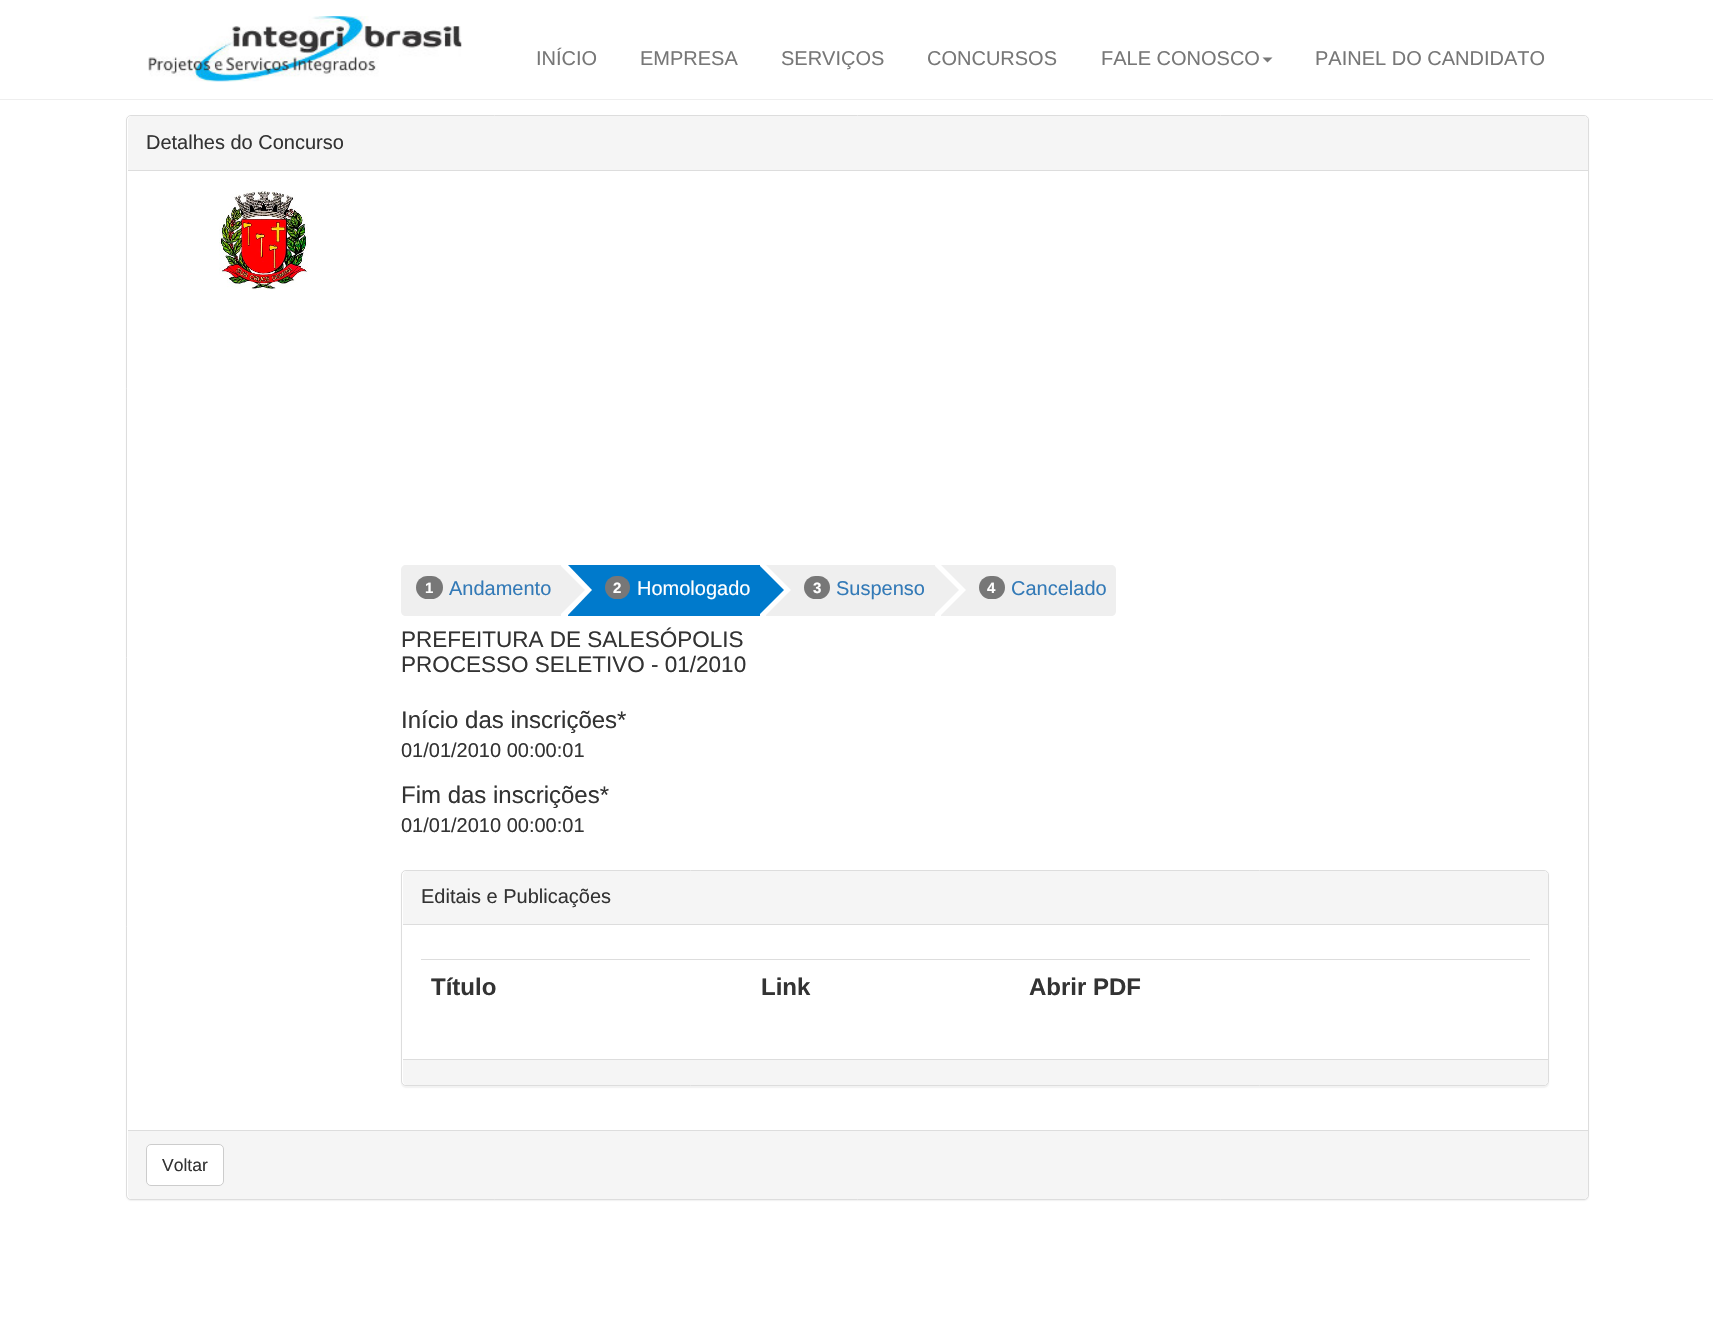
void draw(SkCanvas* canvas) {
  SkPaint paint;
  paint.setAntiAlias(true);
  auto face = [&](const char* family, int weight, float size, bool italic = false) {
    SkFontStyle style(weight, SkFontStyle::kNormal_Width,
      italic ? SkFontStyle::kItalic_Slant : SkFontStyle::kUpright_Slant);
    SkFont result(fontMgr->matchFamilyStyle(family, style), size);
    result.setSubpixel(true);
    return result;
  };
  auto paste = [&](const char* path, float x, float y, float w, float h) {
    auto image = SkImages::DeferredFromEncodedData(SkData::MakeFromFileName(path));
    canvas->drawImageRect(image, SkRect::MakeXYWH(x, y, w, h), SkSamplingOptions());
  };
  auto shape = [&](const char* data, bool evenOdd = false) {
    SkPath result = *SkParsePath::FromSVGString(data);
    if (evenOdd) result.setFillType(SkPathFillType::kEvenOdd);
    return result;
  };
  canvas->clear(0xffffffff);
  paste("img/1.png", 148, 16, 314, 66);
  paint.setColor(0xff777777);
  canvas->drawPath(shape("M1262.5 57.5H1272.5L1267.5 62.5Z"), paint);
  paint.setColor(0xffeeeeee);
  canvas->drawRect(SkRect::MakeXYWH(0, 99, 1713, 1), paint);
  paint.setColor(0x0d000000);
  paint.setMaskFilter(SkMaskFilter::MakeBlur(kNormal_SkBlurStyle, 0.5f));
  canvas->drawRoundRect(SkRect::MakeXYWH(126, 116, 1463, 1085), 5, 5, paint);
  paint.setMaskFilter(nullptr);
  paint.setColor(0xffffffff);
  canvas->drawRoundRect(SkRect::MakeXYWH(126.5f, 115.5f, 1462, 1084), 4.5f, 4.5f, paint);
  paint.setStroke(true);
  paint.setStrokeWidth(1);
  paint.setColor(0xffdddddd);
  canvas->drawRoundRect(SkRect::MakeXYWH(126.5f, 115.5f, 1462, 1084), 4.5f, 4.5f, paint);
  paint.setStroke(false);
  paint.setColor(0xfff5f5f5);
  canvas->drawPath(shape("M132 116H1584C1586 116 1588 118 1588 120V171H128V120C128 118 130 116 132 116Z"), paint);
  paint.setColor(0xffdddddd);
  canvas->drawRect(SkRect::MakeXYWH(128, 170, 1460, 1), paint);
  paste("img/2.png", 219, 190, 89, 100);
  paint.setColor(0xffefefef);
  canvas->drawPath(shape("M406 565H561V616H406C403 616 401 614 401 611V570C401 567 403 565 406 565Z"), paint);
  paint.setColor(0xff777777);
  canvas->drawRoundRect(SkRect::MakeXYWH(416, 576, 27, 23), 11.5f, 11.5f, paint);
  paint.setColor(0xff007acc);
  canvas->drawRect(SkRect::MakeXYWH(568, 565, 192, 51), paint);
  paint.setColor(0xffffffff);
  canvas->drawPath(shape("M568 615V565L592 590Z"), paint);
  paint.setColor(0xffefefef);
  canvas->drawPath(shape("M560 615V565L585 590Z"), paint);
  paint.setColor(0xff777777);
  canvas->drawRoundRect(SkRect::MakeXYWH(605, 576, 25, 23), 11.5f, 11.5f, paint);
  paint.setColor(0xffefefef);
  canvas->drawRect(SkRect::MakeXYWH(766, 565, 169, 51), paint);
  paint.setColor(0xffffffff);
  canvas->drawPath(shape("M766 615V565L791 590Z"), paint);
  paint.setColor(0xff007acc);
  canvas->drawPath(shape("M759 615V565L784 590Z"), paint);
  paint.setColor(0xff777777);
  canvas->drawRoundRect(SkRect::MakeXYWH(804, 576, 26, 23), 11.5f, 11.5f, paint);
  paint.setColor(0xffefefef);
  canvas->drawPath(shape("M941 565H1111C1114 565 1116 567 1116 570V611C1116 614 1114 616 1111 616H941Z"), paint);
  paint.setColor(0xffffffff);
  canvas->drawPath(shape("M941 615V565L966 590Z"), paint);
  paint.setColor(0xffefefef);
  canvas->drawPath(shape("M934 615V565L959 590Z"), paint);
  paint.setColor(0xff777777);
  canvas->drawRoundRect(SkRect::MakeXYWH(979, 576, 26, 23), 11.5f, 11.5f, paint);
  paint.setColor(0x0d000000);
  paint.setMaskFilter(SkMaskFilter::MakeBlur(kNormal_SkBlurStyle, 0.5f));
  canvas->drawRoundRect(SkRect::MakeXYWH(401, 871, 1148, 217), 5, 5, paint);
  paint.setMaskFilter(nullptr);
  paint.setColor(0xffffffff);
  canvas->drawRoundRect(SkRect::MakeXYWH(401.5f, 870.5f, 1147, 215), 4.5f, 4.5f, paint);
  paint.setStroke(true);
  paint.setColor(0xffdddddd);
  canvas->drawRoundRect(SkRect::MakeXYWH(401.5f, 870.5f, 1147, 215), 4.5f, 4.5f, paint);
  paint.setStroke(false);
  paint.setColor(0xfff5f5f5);
  canvas->drawPath(shape("M407 871H1544C1546 871 1548 873 1548 875V925H403V875C403 873 405 871 407 871Z"), paint);
  paint.setColor(0xffdddddd);
  canvas->drawRect(SkRect::MakeXYWH(403, 924, 1145, 1), paint);
  canvas->drawRect(SkRect::MakeXYWH(421, 959, 1109, 1), paint);
  paint.setColor(0xfff5f5f5);
  canvas->drawPath(shape("M403 1059H1548V1081C1548 1083 1546 1085 1544 1085H407C405 1085 403 1083 403 1081Z"), paint);
  paint.setColor(0xffdddddd);
  canvas->drawRect(SkRect::MakeXYWH(403, 1059, 1145, 1), paint);
  paint.setColor(0xfff5f5f5);
  canvas->drawPath(shape("M128 1130H1588V1195C1588 1197 1586 1199 1584 1199H132C130 1199 128 1197 128 1195Z"), paint);
  paint.setColor(0xffdddddd);
  canvas->drawRect(SkRect::MakeXYWH(128, 1130, 1460, 1), paint);
  paint.setColor(0xffffffff);
  canvas->drawRoundRect(SkRect::MakeXYWH(146.5f, 1144.5f, 77, 41), 4.5f, 4.5f, paint);
  paint.setStroke(true);
  paint.setColor(0xffcccccc);
  canvas->drawRoundRect(SkRect::MakeXYWH(146.5f, 1144.5f, 77, 41), 4.5f, 4.5f, paint);
  auto f0 = face("Liberation Sans", 400, 20);
  paint.setStroke(false);
  paint.setColor(0xff777777);
  {
    const struct { const char* s; float x, y; } items[] = {
      {"INÍCIO", 536, 65},
      {"EMPRESA", 640, 65},
      {"SERVIÇOS", 781, 65},
      {"CONCURSOS", 927, 65},
      {"FALE CONOSCO", 1101, 65},
      {"PAINEL DO CANDIDATO", 1315, 65},
    };
    for (auto [s, x, y] : items) {
      canvas->drawString(s, x, y, f0, paint);
    }
  }
  paint.setColor(0xff333333);
  canvas->drawString("Detalhes do Concurso", 146, 149, f0, paint);
  auto f1 = face("Liberation Sans", 700, 15);
  paint.setColor(0xffffffff);
  canvas->drawString("1", 425, 593, f1, paint);
  paint.setColor(0xff337ab7);
  canvas->drawString("Andamento", 449, 595, f0, paint);
  paint.setColor(0xffffffff);
  canvas->drawString("2", 613, 593, f1, paint);
  canvas->drawString("Homologado", 637, 595, f0, paint);
  canvas->drawString("3", 813, 593, f1, paint);
  paint.setColor(0xff337ab7);
  canvas->drawString("Suspenso", 836, 595, f0, paint);
  paint.setColor(0xffffffff);
  canvas->drawString("4", 987, 593, f1, paint);
  paint.setColor(0xff337ab7);
  canvas->drawString("Cancelado", 1011, 595, f0, paint);
  auto f2 = face("Liberation Sans", 400, 22.5f);
  paint.setColor(0xff333333);
  canvas->drawString("PREFEITURA DE SALESÓPOLIS", 401, 647, f2, paint);
  canvas->drawString("PROCESSO SELETIVO - 01/2010", 401, 672, f2, paint);
  auto f3 = face("Liberation Sans", 400, 24);
  canvas->drawString("Início das inscrições*", 401, 728, f3, paint);
  canvas->drawString("01/01/2010 00:00:01", 401, 757, f0, paint);
  canvas->drawString("Fim das inscrições*", 401, 803, f3, paint);
  canvas->drawString("01/01/2010 00:00:01", 401, 832, f0, paint);
  canvas->drawString("Editais e Publicações", 421, 903, f0, paint);
  auto f4 = face("Liberation Sans", 700, 24);
  {
    const struct { const char* s; float x, y; } items[] = {
      {"Título", 431, 995},
      {"Link", 761, 995},
      {"Abrir PDF", 1029, 995},
    };
    for (auto [s, x, y] : items) {
      canvas->drawString(s, x, y, f4, paint);
    }
  }
  auto f5 = face("Liberation Sans", 400, 17.5f);
  canvas->drawString("Voltar", 162, 1171, f5, paint);
}
